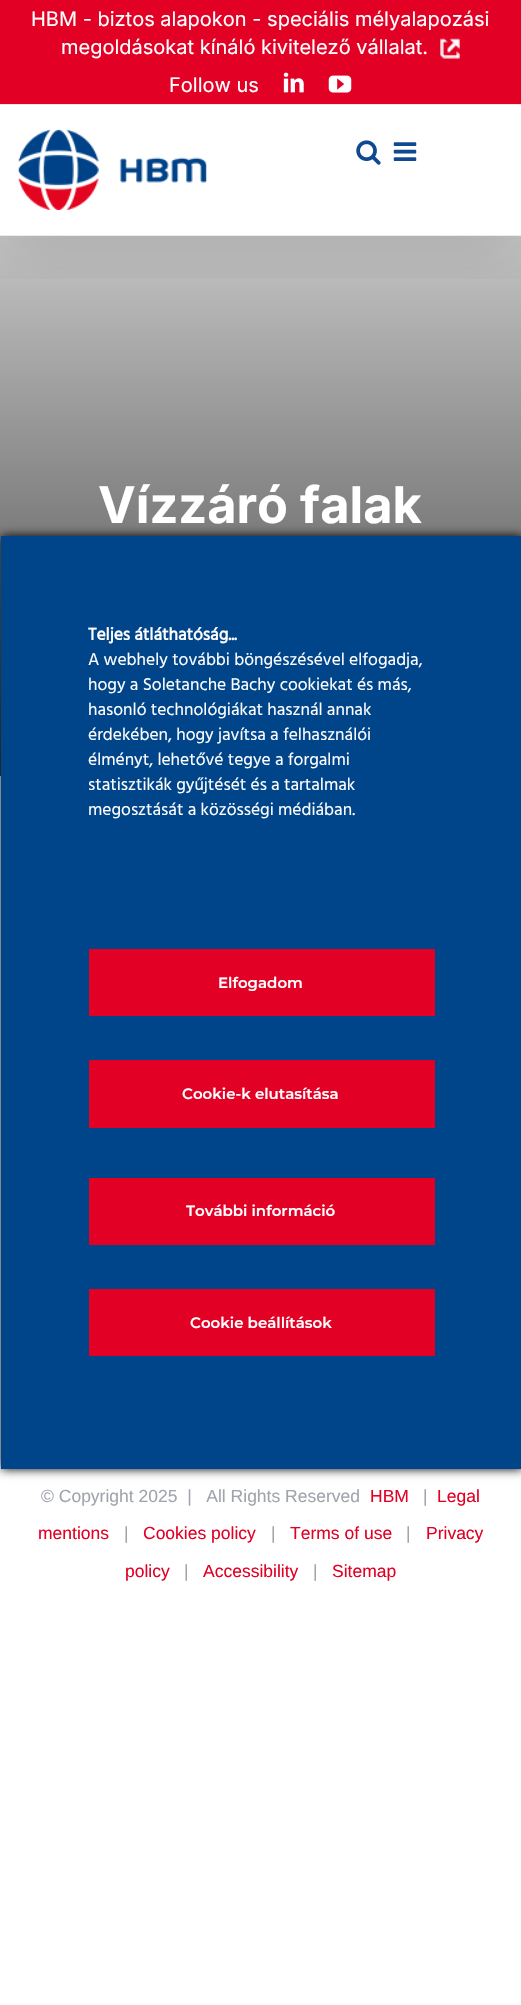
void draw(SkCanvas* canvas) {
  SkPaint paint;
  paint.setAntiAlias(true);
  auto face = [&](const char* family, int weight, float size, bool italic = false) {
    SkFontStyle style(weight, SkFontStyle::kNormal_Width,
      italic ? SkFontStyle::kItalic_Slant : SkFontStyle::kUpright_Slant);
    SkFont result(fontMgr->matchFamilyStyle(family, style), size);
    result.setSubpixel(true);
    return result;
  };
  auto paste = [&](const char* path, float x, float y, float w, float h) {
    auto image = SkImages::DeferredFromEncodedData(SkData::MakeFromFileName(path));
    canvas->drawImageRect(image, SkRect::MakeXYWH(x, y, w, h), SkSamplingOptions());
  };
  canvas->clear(0xffffffff);
  {
    const SkColor colors[] = {0xffc4c4c4, 0xff434343};
    const float stops[] = {0, 1};
    const SkPoint ends[] = {{261, 236}, {261, 776}};
    paint.setShader(SkGradientShader::MakeLinear(ends, colors, stops, 2, SkTileMode::kClamp));
    paint.setAlpha(255);
  }
  canvas->drawRect(SkRect::MakeXYWH(0, 236, 521, 540), paint);
  canvas->save();
  canvas->clipRect(SkRect::MakeXYWH(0, 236, 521, 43));
  paint.setShader(nullptr);
  paint.setColor(0x24000000);
  paint.setMaskFilter(SkMaskFilter::MakeBlur(kNormal_SkBlurStyle, 31));
  canvas->drawRect(SkRect::MakeXYWH(3, 15, 516, 231), paint);
  paint.setMaskFilter(nullptr);
  canvas->restore();
  paint.setColor(0xffe20025);
  canvas->drawRect(SkRect::MakeXYWH(0, 0, 521, 104), paint);
  paint.setColor(0xffebebeb);
  canvas->drawRect(SkRect::MakeXYWH(0, 104, 521, 1), paint);
  paste("img/1.png", 440, 38, 20, 21);
  paste("img/2.png", 283, 72, 21, 21);
  paste("img/3.png", 328, 75, 24, 18);
  canvas->drawRect(SkRect::MakeXYWH(0, 235, 521, 1), paint);
  paste("img/4.png", 18, 129, 189, 81);
  paste("img/5.png", 356, 140, 25, 25);
  paste("img/6.png", 393, 142, 24, 19);
  canvas->drawRect(SkRect::MakeXYWH(0, 1090, 1, 1), paint);
  paint.setColor(0xff000000);
  paint.setMaskFilter(SkMaskFilter::MakeBlur(kNormal_SkBlurStyle, 5));
  canvas->drawRect(SkRect::MakeXYWH(1, 536, 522, 933), paint);
  paint.setMaskFilter(nullptr);
  {
    const struct { float x, y, w, h; SkColor color; } items[] = {
      {1, 536, 520, 933, 0xff004489},
      {89, 949, 346, 67, 0xffe20025},
      {89, 1060, 346, 68, 0xffe20025},
      {89, 1178, 346, 67, 0xffe20025},
      {89, 1289, 346, 67, 0xffe20025},
    };
    for (auto [x, y, w, h, color] : items) {
      paint.setColor(color);
      canvas->drawRect(SkRect::MakeXYWH(x, y, w, h), paint);
    }
  }
  auto f0 = face("Inter", 400, 20);
  paint.setColor(0xffffffff);
  {
    const struct { const char* s; float x, y; } items[] = {
      {"HBM - biztos alapokon - speciális mélyalapozási", 31, 26},
      {"megoldásokat kínáló kivitelező vállalat.", 61, 54},
      {"Follow us", 169, 92},
    };
    for (auto [s, x, y] : items) {
      canvas->drawString(s, x, y, f0, paint);
    }
  }
  auto f1 = face("Inter", 700, 50.5f);
  canvas->drawString("Vízzáró falak", 98, 523, f1, paint);
  auto f2 = face("Liberation Sans", 400, 17.5f);
  paint.setColor(0xff9fa5ac);
  canvas->drawString("© Copyright 2025  |   All Rights Reserved", 41, 1502, f2, paint);
  paint.setColor(0xffe20025);
  canvas->drawString("HBM", 370, 1502, f2, paint);
  paint.setColor(0xff9fa5ac);
  canvas->drawString("|", 423, 1502, f2, paint);
  paint.setColor(0xffe20025);
  canvas->drawString("Legal", 437, 1502, f2, paint);
  canvas->drawString("mentions", 38, 1539, f2, paint);
  paint.setColor(0xff9fa5ac);
  canvas->drawString("|", 124, 1539, f2, paint);
  paint.setColor(0xffe20025);
  canvas->drawString("Cookies policy", 143, 1539, f2, paint);
  paint.setColor(0xff9fa5ac);
  canvas->drawString("|", 271, 1539, f2, paint);
  paint.setColor(0xffe20025);
  canvas->drawString("Terms of use", 290, 1539, f2, paint);
  paint.setColor(0xff9fa5ac);
  canvas->drawString("|", 406, 1539, f2, paint);
  paint.setColor(0xffe20025);
  canvas->drawString("Privacy", 426, 1539, f2, paint);
  canvas->drawString("policy", 125, 1577, f2, paint);
  paint.setColor(0xff9fa5ac);
  canvas->drawString("|", 184, 1577, f2, paint);
  paint.setColor(0xffe20025);
  canvas->drawString("Accessibility", 203, 1577, f2, paint);
  paint.setColor(0xff9fa5ac);
  canvas->drawString("|", 313, 1577, f2, paint);
  paint.setColor(0xffe20025);
  canvas->drawString("Sitemap", 332, 1577, f2, paint);
  auto f3 = face("Hind", 700, 17.5f);
  paint.setColor(0xffffffff);
  canvas->drawString("Teljes átláthatóság...", 88, 640, f3, paint);
  auto f4 = face("Hind", 400, 17.5f);
  {
    const struct { const char* s; float x, y; } items[] = {
      {"A webhely további böngészésével elfogadja,", 88, 665},
      {"hogy a Soletanche Bachy cookiekat és más,", 88, 690},
      {"hasonló technológiákat használ annak", 88, 715},
      {"érdekében, hogy javítsa a felhasználói", 88, 740},
      {"élményt, lehetővé tegye a forgalmi", 88, 765},
      {"statisztikák gyűjtését és a tartalmak", 88, 790},
      {"megosztását a közösségi médiában.", 88, 815},
    };
    for (auto [s, x, y] : items) {
      canvas->drawString(s, x, y, f4, paint);
    }
  }
  auto f5 = face("Montserrat", 600, 15);
  {
    const struct { const char* s; float x, y; } items[] = {
      {"Elfogadom", 218, 988},
      {"Cookie-k elutasítása", 182, 1099},
      {"További információ", 186, 1216},
      {"Cookie beállítások", 190, 1328},
    };
    for (auto [s, x, y] : items) {
      canvas->drawString(s, x, y, f5, paint);
    }
  }
}
